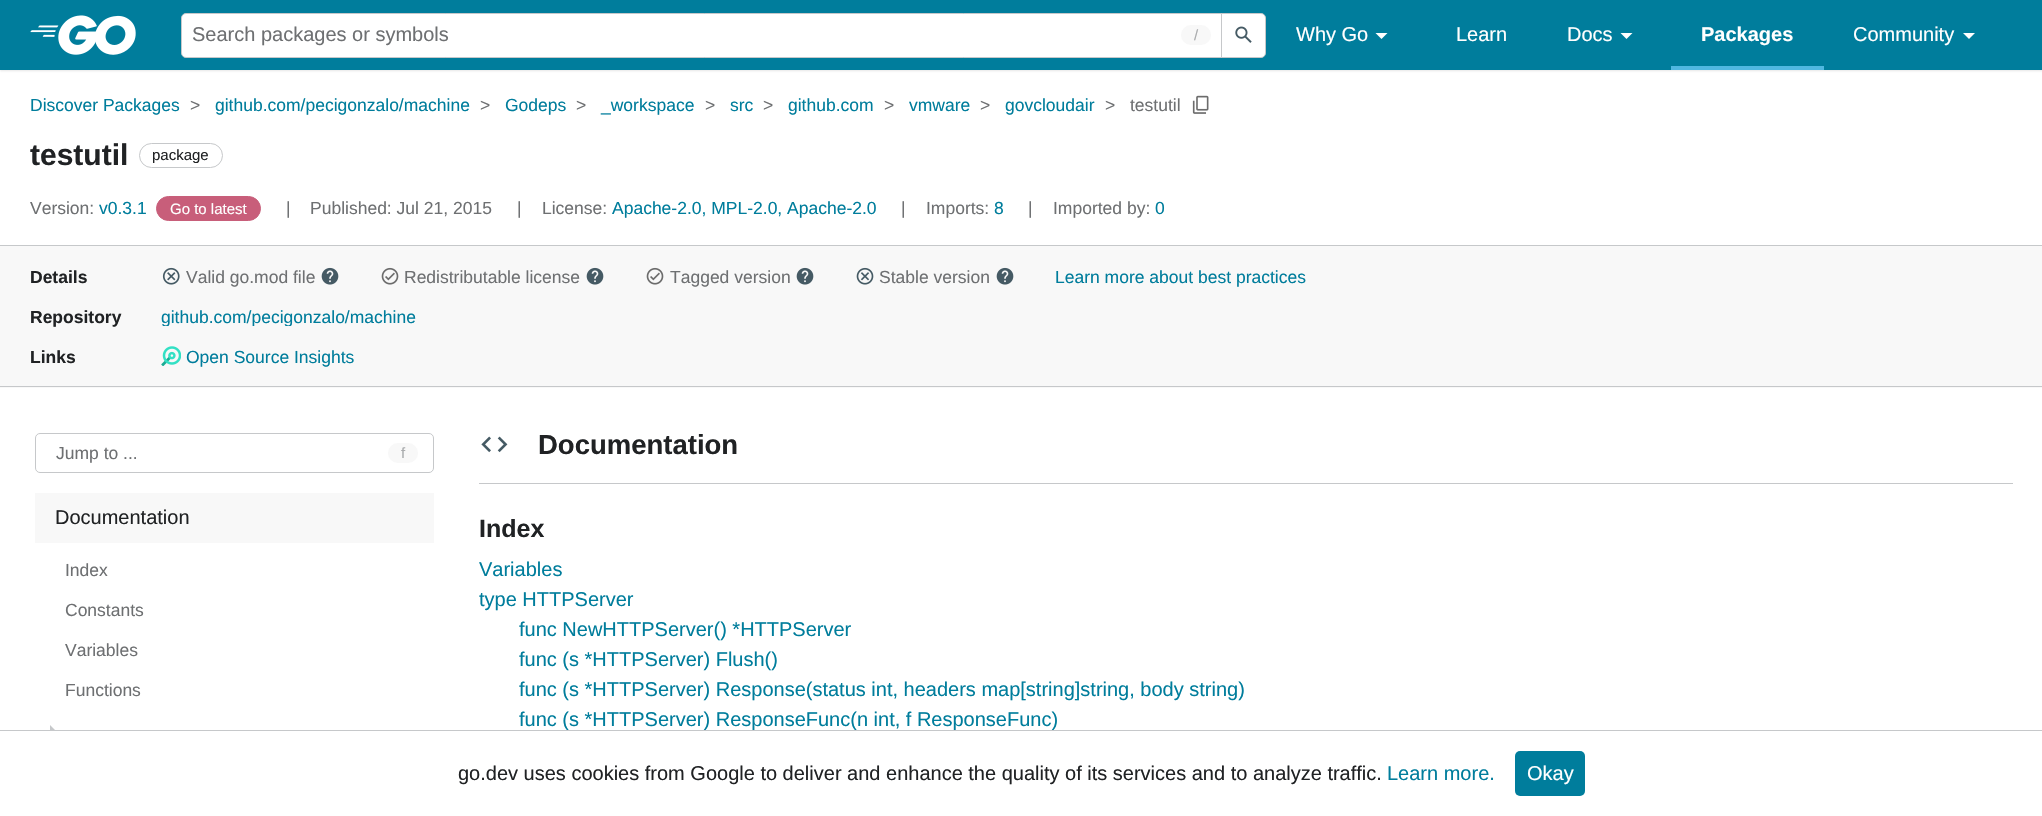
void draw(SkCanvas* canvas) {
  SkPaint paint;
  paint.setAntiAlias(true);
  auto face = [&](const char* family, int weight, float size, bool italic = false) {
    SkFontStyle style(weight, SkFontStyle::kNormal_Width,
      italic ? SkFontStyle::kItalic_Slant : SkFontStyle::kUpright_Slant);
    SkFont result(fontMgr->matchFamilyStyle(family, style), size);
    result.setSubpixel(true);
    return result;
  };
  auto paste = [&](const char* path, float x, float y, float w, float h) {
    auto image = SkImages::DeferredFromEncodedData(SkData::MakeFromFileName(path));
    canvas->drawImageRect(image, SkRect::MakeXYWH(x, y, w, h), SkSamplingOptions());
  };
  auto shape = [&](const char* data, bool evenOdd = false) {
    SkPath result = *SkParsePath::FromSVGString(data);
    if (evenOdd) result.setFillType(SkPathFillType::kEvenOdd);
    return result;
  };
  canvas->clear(0xffffffff);
  paint.setColor(0x4dababab);
  paint.setMaskFilter(SkMaskFilter::MakeBlur(kNormal_SkBlurStyle, 1));
  canvas->drawRect(SkRect::MakeXYWH(0, 1, 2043, 70), paint);
  paint.setMaskFilter(nullptr);
  paint.setColor(0xff007d9c);
  canvas->drawRect(SkRect::MakeXYWH(0, 0, 2042, 70), paint);
  paste("img/1.png", 30, 15, 106, 40);
  paint.setColor(0xffffffff);
  canvas->drawPath(shape("M186 13.5H1222.5V57.5H186C183.5 57.5 181.5 55.5 181.5 53V18C181.5 15.5 183.5 13.5 186 13.5Z"), paint);
  paint.setStroke(true);
  paint.setStrokeWidth(1);
  paint.setColor(0xffc6c8ca);
  canvas->drawPath(shape("M186 13.5H1222.5V57.5H186C183.5 57.5 181.5 55.5 181.5 53V18C181.5 15.5 183.5 13.5 186 13.5Z"), paint);
  paint.setStroke(false);
  paint.setColor(0xfff8f8f8);
  canvas->drawRoundRect(SkRect::MakeXYWH(1181, 25, 30, 20), 10, 10, paint);
  paint.setColor(0xffffffff);
  canvas->drawPath(shape("M1221.5 13.5H1261C1263.5 13.5 1265.5 15.5 1265.5 18V53C1265.5 55.5 1263.5 57.5 1261 57.5H1221.5Z"), paint);
  paint.setStroke(true);
  paint.setColor(0xffc6c8ca);
  canvas->drawPath(shape("M1221.5 13.5H1261C1263.5 13.5 1265.5 15.5 1265.5 18V53C1265.5 55.5 1263.5 57.5 1261 57.5H1221.5Z"), paint);
  paste("img/2.png", 1235, 26, 17, 17);
  paint.setStroke(false);
  paint.setColor(0xffffffff);
  canvas->drawPath(shape("M1375.5 33L1381.5 39L1387.5 33Z"), paint);
  canvas->drawPath(shape("M1620.5 33L1626.5 39L1632.5 33Z"), paint);
  paint.setColor(0xff50b7e0);
  canvas->drawRect(SkRect::MakeXYWH(1671, 66, 153, 4), paint);
  paint.setColor(0xffffffff);
  canvas->drawPath(shape("M1963 33L1969 39L1975 33Z"), paint);
  paint.setColor(0xffc6c8ca);
  canvas->drawRect(SkRect::MakeXYWH(0, 245, 2042, 1), paint);
  paste("img/3.png", 1192, 95, 17, 19);
  paint.setStroke(true);
  canvas->drawRoundRect(SkRect::MakeXYWH(139.5f, 143.5f, 83, 24), 12, 12, paint);
  paint.setStroke(false);
  paint.setColor(0xffc85e7a);
  canvas->drawRoundRect(SkRect::MakeXYWH(156.5f, 196.5f, 104, 24), 12, 12, paint);
  paint.setStroke(true);
  canvas->drawRoundRect(SkRect::MakeXYWH(156.5f, 196.5f, 104, 24), 12, 12, paint);
  paint.setStroke(false);
  paint.setColor(0xfff8f8f8);
  canvas->drawRect(SkRect::MakeXYWH(0, 246, 2042, 142), paint);
  paint.setColor(0xffc6c8ca);
  canvas->drawRect(SkRect::MakeXYWH(0, 386, 2042, 1), paint);
  paste("img/4.png", 162, 267, 18, 18);
  paste("img/5.png", 321, 267, 18, 18);
  paste("img/6.png", 381, 267, 18, 18);
  paste("img/5.png", 586, 267, 18, 18);
  paste("img/6.png", 646, 267, 18, 18);
  paste("img/5.png", 796, 267, 18, 18);
  paste("img/7.png", 856, 267, 18, 18);
  paste("img/5.png", 996, 267, 18, 18);
  paste("img/8.png", 161, 346, 20, 20);
  paint.setStroke(true);
  canvas->drawRoundRect(SkRect::MakeXYWH(35.5f, 433.5f, 398, 39), 4.5f, 4.5f, paint);
  paint.setStroke(false);
  paint.setColor(0xfff8f8f8);
  canvas->drawRoundRect(SkRect::MakeXYWH(388, 443, 30, 20), 10, 10, paint);
  canvas->drawRect(SkRect::MakeXYWH(35, 493, 399, 50), paint);
  paint.setColor(0xffc6c8ca);
  canvas->drawPath(shape("M50 735V725L55 730Z"), paint);
  canvas->drawRect(SkRect::MakeXYWH(479, 483, 1534, 1), paint);
  paste("img/9.png", 481, 436, 27, 17);
  paint.setColor(0xffffffff);
  canvas->drawRect(SkRect::MakeXYWH(50, 731, 4, 4), paint);
  paint.setColor(0xff007d9c);
  canvas->drawRoundRect(SkRect::MakeXYWH(1515, 751, 70, 45), 5, 5, paint);
  auto f0 = face("Liberation Sans", 400, 20);
  paint.setColor(0xff6e7072);
  canvas->drawString("Search packages or symbols", 192, 41, f0, paint);
  auto f1 = face("Liberation Sans", 400, 15);
  paint.setColor(0xffaaacae);
  canvas->drawString("/", 1194, 40, f1, paint);
  paint.setColor(0xffffffff);
  {
    const struct { const char* s; float x, y; } items[] = {
      {"Why Go", 1296, 41},
      {"Learn", 1456, 41},
      {"Docs", 1567, 41},
    };
    for (auto [s, x, y] : items) {
      canvas->drawString(s, x, y, f0, paint);
    }
  }
  auto f2 = face("Liberation Sans", 700, 20);
  canvas->drawString("Packages", 1701, 41, f2, paint);
  canvas->drawString("Community", 1853, 41, f0, paint);
  auto f3 = face("Liberation Sans", 400, 17.5f);
  paint.setColor(0xff007d9c);
  canvas->drawString("Discover Packages", 30, 111, f3, paint);
  paint.setColor(0xff6e7072);
  canvas->drawString(">", 190, 111, f3, paint);
  paint.setColor(0xff007d9c);
  canvas->drawString("github.com/pecigonzalo/machine", 215, 111, f3, paint);
  paint.setColor(0xff6e7072);
  canvas->drawString(">", 480, 111, f3, paint);
  paint.setColor(0xff007d9c);
  canvas->drawString("Godeps", 505, 111, f3, paint);
  paint.setColor(0xff6e7072);
  canvas->drawString(">", 576, 111, f3, paint);
  paint.setColor(0xff007d9c);
  canvas->drawString("_workspace", 601, 111, f3, paint);
  paint.setColor(0xff6e7072);
  canvas->drawString(">", 705, 111, f3, paint);
  paint.setColor(0xff007d9c);
  canvas->drawString("src", 730, 111, f3, paint);
  paint.setColor(0xff6e7072);
  canvas->drawString(">", 763, 111, f3, paint);
  paint.setColor(0xff007d9c);
  canvas->drawString("github.com", 788, 111, f3, paint);
  paint.setColor(0xff6e7072);
  canvas->drawString(">", 884, 111, f3, paint);
  paint.setColor(0xff007d9c);
  canvas->drawString("vmware", 909, 111, f3, paint);
  paint.setColor(0xff6e7072);
  canvas->drawString(">", 980, 111, f3, paint);
  paint.setColor(0xff007d9c);
  canvas->drawString("govcloudair", 1005, 111, f3, paint);
  paint.setColor(0xff6e7072);
  canvas->drawString(">", 1105, 111, f3, paint);
  canvas->drawString("testutil", 1130, 111, f3, paint);
  auto f4 = face("Liberation Sans", 700, 30);
  paint.setColor(0xff202224);
  canvas->drawString("testutil", 30, 165, f4, paint);
  canvas->drawString("package", 152, 160, f1, paint);
  paint.setColor(0xff6e7072);
  canvas->drawString("Version:", 30, 214, f3, paint);
  paint.setColor(0xff007d9c);
  canvas->drawString("v0.3.1", 99, 214, f3, paint);
  paint.setColor(0xffffffff);
  canvas->drawString("Go to latest", 170, 214, f1, paint);
  paint.setColor(0xff6e7072);
  {
    const struct { const char* s; float x, y; } items[] = {
      {"|", 286, 214},
      {"Published: Jul 21, 2015", 310, 214},
      {"|", 517, 214},
      {"License:", 542, 214},
    };
    for (auto [s, x, y] : items) {
      canvas->drawString(s, x, y, f3, paint);
    }
  }
  paint.setColor(0xff007d9c);
  canvas->drawString("Apache-2.0, MPL-2.0, Apache-2.0", 612, 214, f3, paint);
  paint.setColor(0xff6e7072);
  canvas->drawString("|", 901, 214, f3, paint);
  canvas->drawString("Imports:", 926, 214, f3, paint);
  paint.setColor(0xff007d9c);
  canvas->drawString("8", 994, 214, f3, paint);
  paint.setColor(0xff6e7072);
  canvas->drawString("|", 1028, 214, f3, paint);
  canvas->drawString("Imported by:", 1053, 214, f3, paint);
  paint.setColor(0xff007d9c);
  canvas->drawString("0", 1155, 214, f3, paint);
  auto f5 = face("Liberation Sans", 700, 17.5f);
  paint.setColor(0xff202224);
  canvas->drawString("Details", 30, 283, f5, paint);
  paint.setColor(0xff6e7072);
  {
    const struct { const char* s; float x, y; } items[] = {
      {"Valid go.mod file", 186, 283},
      {"Redistributable license", 404, 283},
      {"Tagged version", 670, 283},
      {"Stable version", 879, 283},
    };
    for (auto [s, x, y] : items) {
      canvas->drawString(s, x, y, f3, paint);
    }
  }
  paint.setColor(0xff007d9c);
  canvas->drawString("Learn more about best practices", 1055, 283, f3, paint);
  paint.setColor(0xff202224);
  canvas->drawString("Repository", 30, 323, f5, paint);
  canvas->save();
  canvas->clipRect(SkRect::MakeXYWH(161, 306, 255, 20));
  paint.setColor(0xff007d9c);
  canvas->drawString("github.com/pecigonzalo/machine", 161, 323, f3, paint);
  canvas->restore();
  paint.setColor(0xff202224);
  canvas->drawString("Links", 30, 363, f5, paint);
  paint.setColor(0xff007d9c);
  canvas->drawString("Open Source Insights", 186, 363, f3, paint);
  paint.setColor(0xff6e7072);
  canvas->drawString("Jump to ...", 56, 459, f3, paint);
  paint.setColor(0xffaaacae);
  canvas->drawString("f", 401, 458, f1, paint);
  paint.setColor(0xff202224);
  canvas->drawString("Documentation", 55, 524, f0, paint);
  paint.setColor(0xff6e7072);
  {
    const struct { const char* s; float x, y; } items[] = {
      {"Index", 65, 576},
      {"Constants", 65, 616},
      {"Variables", 65, 656},
      {"Functions", 65, 696},
    };
    for (auto [s, x, y] : items) {
      canvas->drawString(s, x, y, f3, paint);
    }
  }
  auto f6 = face("Liberation Sans", 700, 27.5f);
  paint.setColor(0xff202224);
  canvas->drawString("Documentation", 538, 454, f6, paint);
  auto f7 = face("Liberation Sans", 700, 25);
  canvas->drawString("Index", 479, 537, f7, paint);
  paint.setColor(0xff007d9c);
  {
    const struct { const char* s; float x, y; } items[] = {
      {"Variables", 479, 576},
      {"type HTTPServer", 479, 606},
      {"func NewHTTPServer() *HTTPServer", 519, 636},
      {"func (s *HTTPServer) Flush()", 519, 666},
      {"func (s *HTTPServer) Response(status int, headers map[string]string, body string)", 519, 696},
      {"func (s *HTTPServer) ResponseFunc(n int, f ResponseFunc)", 519, 726},
    };
    for (auto [s, x, y] : items) {
      canvas->drawString(s, x, y, f0, paint);
    }
  }
  paint.setColor(0xffc6c8ca);
  canvas->drawRect(SkRect::MakeXYWH(0, 730, 2042, 1), paint);
  paint.setColor(0xff202224);
  canvas->drawString("go.dev uses cookies from Google to deliver and enhance the quality of its services and to analyze traffic.", 458, 780, f0, paint);
  paint.setColor(0xff007d9c);
  canvas->drawString("Learn more.", 1387, 780, f0, paint);
  paint.setColor(0xffffffff);
  canvas->drawString("Okay", 1527, 780, f0, paint);
}
